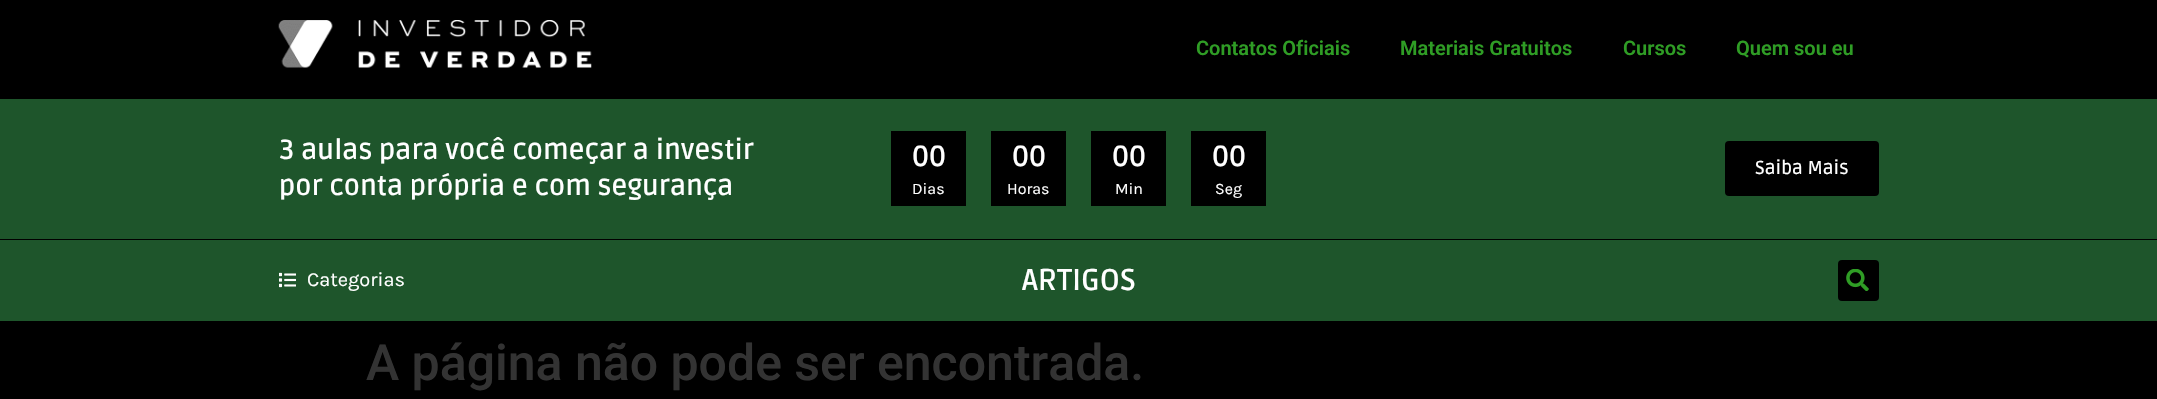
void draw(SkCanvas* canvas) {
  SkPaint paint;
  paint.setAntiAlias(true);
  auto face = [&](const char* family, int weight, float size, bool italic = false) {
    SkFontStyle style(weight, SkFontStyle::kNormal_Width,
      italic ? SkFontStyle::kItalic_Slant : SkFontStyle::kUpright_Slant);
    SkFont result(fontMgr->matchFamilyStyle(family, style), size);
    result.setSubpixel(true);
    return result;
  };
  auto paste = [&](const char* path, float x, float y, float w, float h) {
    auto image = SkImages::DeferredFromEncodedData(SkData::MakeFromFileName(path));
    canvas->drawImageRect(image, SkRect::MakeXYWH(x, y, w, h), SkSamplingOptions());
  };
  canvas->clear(0xff000000);
  paste("img/1.png", 278, 20, 314, 48);
  {
    const struct { float x, y, w, h; SkColor color; } items[] = {
      {0, 99, 2157, 140, 0xff1e552b},
      {891, 131, 75, 75, 0xff000000},
      {991, 131, 75, 75, 0xff000000},
      {1091, 131, 75, 75, 0xff000000},
      {1191, 131, 75, 75, 0xff000000},
    };
    for (auto [x, y, w, h, color] : items) {
      paint.setColor(color);
      canvas->drawRect(SkRect::MakeXYWH(x, y, w, h), paint);
    }
  }
  canvas->drawRoundRect(SkRect::MakeXYWH(1725, 141, 154, 55), 4, 4, paint);
  paint.setColor(0xff1e552b);
  canvas->drawRect(SkRect::MakeXYWH(0, 240, 2157, 81), paint);
  paste("img/2.png", 279, 272, 17, 16);
  paint.setColor(0xff000000);
  canvas->drawRoundRect(SkRect::MakeXYWH(1838, 260, 41, 41), 4, 4, paint);
  paste("img/3.png", 1846, 269, 23, 22);
  auto f0 = face("Roboto", 600, 20);
  paint.setColor(0xff2f9d25);
  {
    const struct { const char* s; float x, y; } items[] = {
      {"Contatos Oficiais", 1196, 55},
      {"Materiais Gratuitos", 1400, 55},
      {"Cursos", 1623, 55},
      {"Quem sou eu", 1736, 55},
    };
    for (auto [s, x, y] : items) {
      canvas->drawString(s, x, y, f0, paint);
    }
  }
  auto f1 = face("Ruda", 600, 27.5f);
  paint.setColor(0xffffffff);
  canvas->drawString("3 aulas para você começar a investir", 279, 159, f1, paint);
  canvas->drawString("por conta própria e com segurança", 279, 195, f1, paint);
  auto f2 = face("Ruda", 600, 29);
  canvas->drawString("00", 912, 166, f2, paint);
  auto f3 = face("Karla", 400, 16);
  canvas->drawString("Dias", 912, 194, f3, paint);
  canvas->drawString("00", 1012, 166, f2, paint);
  canvas->drawString("Horas", 1007, 194, f3, paint);
  canvas->drawString("00", 1112, 166, f2, paint);
  canvas->drawString("Min", 1115, 194, f3, paint);
  canvas->drawString("00", 1212, 166, f2, paint);
  canvas->drawString("Seg", 1215, 194, f3, paint);
  auto f4 = face("Ruda", 500, 18.75f);
  canvas->drawString("Saiba Mais", 1755, 174, f4, paint);
  auto f5 = face("Karla", 400, 20);
  canvas->drawString("Categorias", 307, 286, f5, paint);
  auto f6 = face("Ruda", 600, 30);
  canvas->drawString("ARTIGOS", 1022, 290, f6, paint);
  auto f7 = face("Roboto", 500, 50);
  paint.setColor(0xff333333);
  canvas->drawString("A página não pode ser encontrada.", 366, 380, f7, paint);
}
